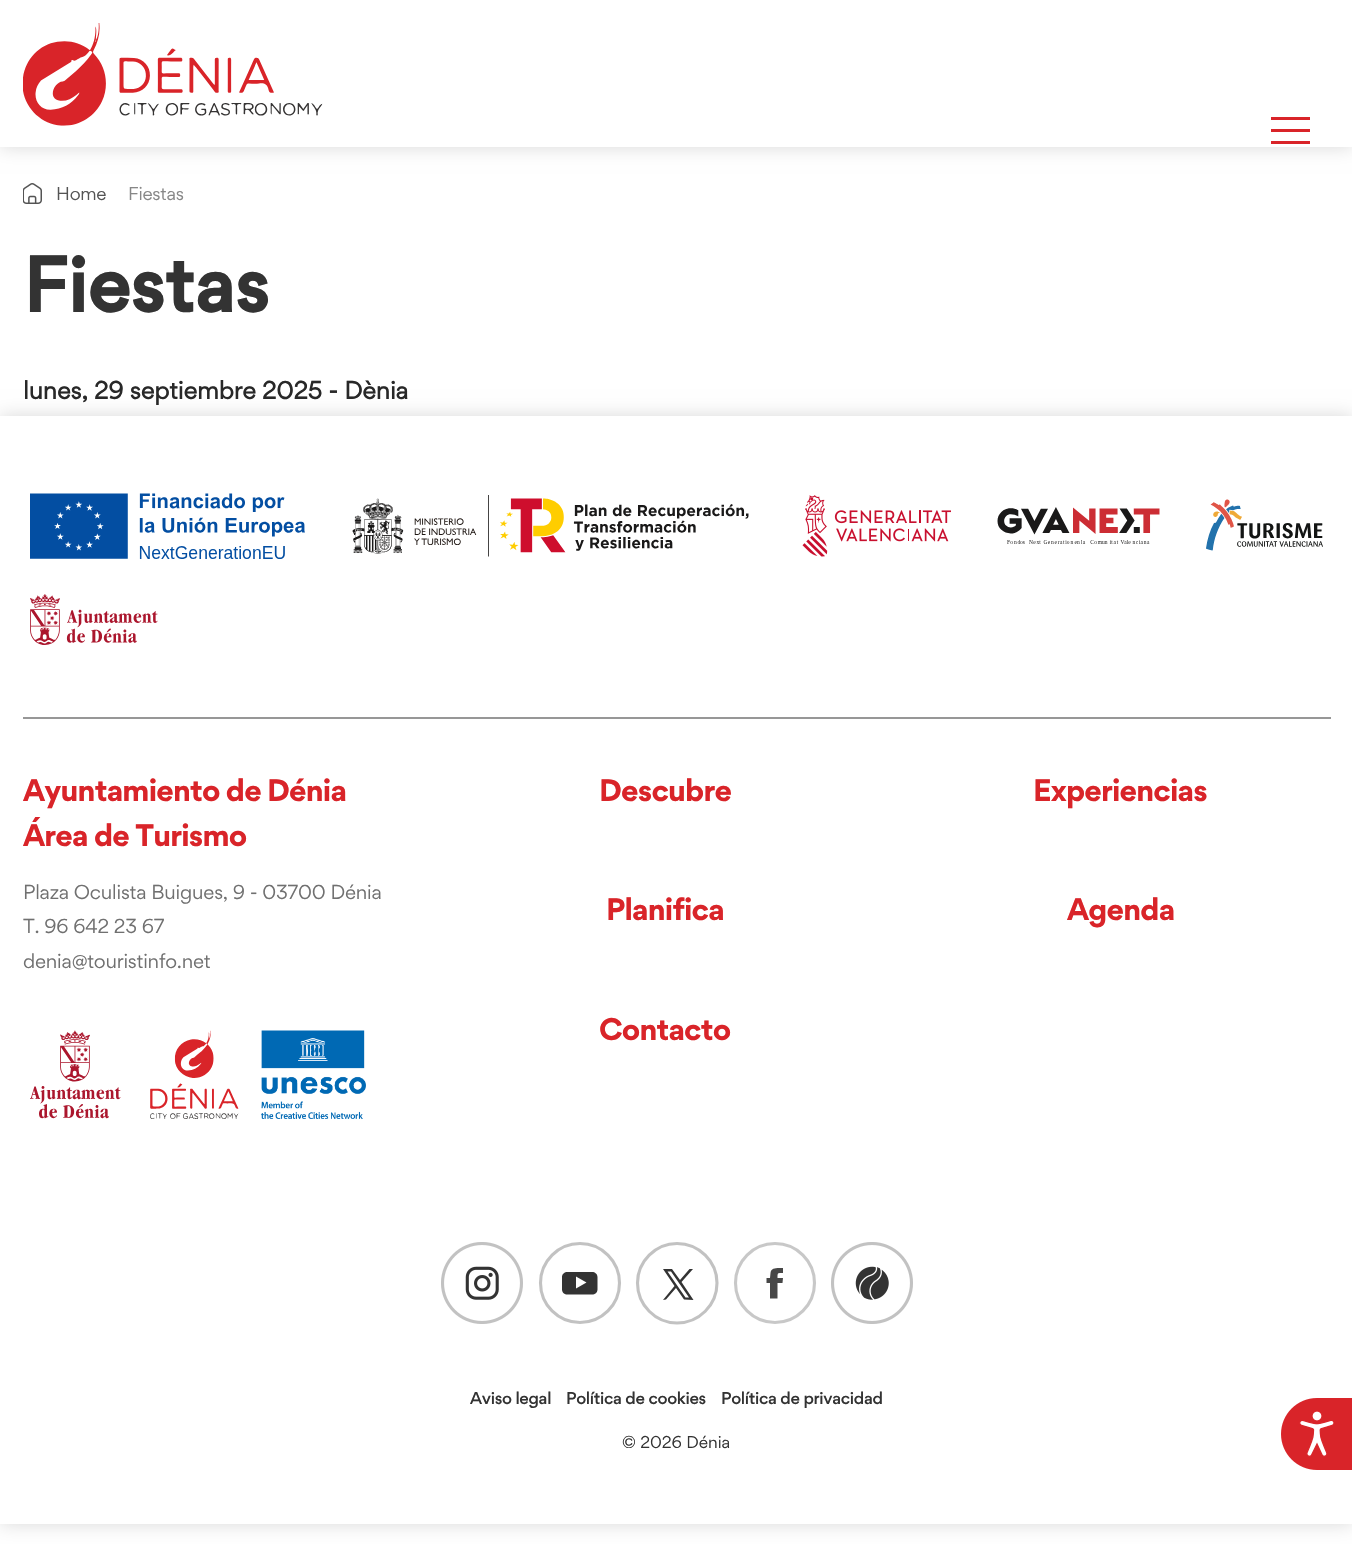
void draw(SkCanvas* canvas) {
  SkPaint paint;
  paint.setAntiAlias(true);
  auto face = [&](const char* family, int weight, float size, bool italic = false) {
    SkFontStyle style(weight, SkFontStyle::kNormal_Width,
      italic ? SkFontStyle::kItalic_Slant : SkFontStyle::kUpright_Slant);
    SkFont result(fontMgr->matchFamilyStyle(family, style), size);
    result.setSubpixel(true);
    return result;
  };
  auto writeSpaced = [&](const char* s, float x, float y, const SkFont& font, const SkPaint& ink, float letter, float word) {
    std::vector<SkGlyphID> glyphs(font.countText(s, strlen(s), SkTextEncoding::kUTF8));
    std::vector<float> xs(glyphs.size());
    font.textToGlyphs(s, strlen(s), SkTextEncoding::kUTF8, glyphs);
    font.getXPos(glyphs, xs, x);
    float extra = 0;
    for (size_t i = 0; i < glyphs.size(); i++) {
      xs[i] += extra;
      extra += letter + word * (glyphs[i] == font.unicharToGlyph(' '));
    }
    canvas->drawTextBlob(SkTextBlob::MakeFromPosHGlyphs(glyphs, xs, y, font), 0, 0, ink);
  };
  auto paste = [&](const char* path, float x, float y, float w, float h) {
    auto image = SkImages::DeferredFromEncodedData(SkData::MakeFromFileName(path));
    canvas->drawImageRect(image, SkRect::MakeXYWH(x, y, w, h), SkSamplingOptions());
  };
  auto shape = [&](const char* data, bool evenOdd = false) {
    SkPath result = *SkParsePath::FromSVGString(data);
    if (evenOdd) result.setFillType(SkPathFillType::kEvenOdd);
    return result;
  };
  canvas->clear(0xffffffff);
  paint.setColor(0x26000000);
  paint.setMaskFilter(SkMaskFilter::MakeBlur(kNormal_SkBlurStyle, 9));
  canvas->drawRect(SkRect::MakeXYWH(0, 0, 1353, 147), paint);
  paint.setMaskFilter(nullptr);
  paint.setColor(0xffffffff);
  canvas->drawRect(SkRect::MakeXYWH(0, 0, 1352, 147), paint);
  paste("img/1.png", 23, 23, 300, 103);
  {
    const struct { float x, y, w, h; SkColor color; } items[] = {
      {1271, 117, 39, 3, 0xffd92429},
      {1271, 129, 39, 3, 0xffd92429},
      {1271, 141, 39, 3, 0xffd92429},
    };
    for (auto [x, y, w, h, color] : items) {
      paint.setColor(color);
      canvas->drawRect(SkRect::MakeXYWH(x, y, w, h), paint);
    }
  }
  paste("img/2.png", 23, 183, 19, 21);
  canvas->save();
  canvas->clipPath(shape("M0 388H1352V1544H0ZM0 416H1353V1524H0Z", true), true);
  paint.setColor(0x26000000);
  paint.setMaskFilter(SkMaskFilter::MakeBlur(kNormal_SkBlurStyle, 9));
  canvas->drawRect(SkRect::MakeXYWH(0, 416, 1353, 1108), paint);
  paint.setMaskFilter(nullptr);
  canvas->restore();
  paste("img/3.png", 30, 493, 275, 66);
  paste("img/4.png", 352, 495, 397, 62);
  paste("img/5.png", 802, 495, 149, 62);
  paste("img/6.png", 997, 507, 163, 37);
  paste("img/7.png", 1206, 499, 117, 52);
  paste("img/8.png", 30, 594, 128, 51);
  paint.setColor(0xff979797);
  canvas->drawRect(SkRect::MakeXYWH(23, 717, 1308, 2), paint);
  paste("img/9.png", 30, 1030, 91, 89);
  paste("img/10.png", 150, 1030, 89, 89);
  paste("img/11.png", 261, 1030, 105, 89);
  paste("img/12.png", 441, 1242, 82, 82);
  paint.setStroke(true);
  paint.setStrokeWidth(3.1f);
  paint.setColor(0xffc2c2c2);
  canvas->drawCircle(580, 1283, 39.5f, paint);
  paint.setStroke(false);
  paint.setColor(0xff333333);
  canvas->drawPath(shape("M597.5 1277C597.5 1274 595 1272 592 1272H567.5C564.5 1272 562 1274 562 1277V1289.5C562 1292.5 564.5 1294.5 567.5 1294.5H592C595 1294.5 597.5 1292.5 597.5 1289.5ZM576 1288.5V1276.5L586.5 1282.5Z"), paint);
  paint.setStroke(true);
  paint.setColor(0xffc2c2c2);
  canvas->drawPath(shape("M677 1243.5C655.5 1243.5 637.5 1261.5 637.5 1283C637.5 1305 655.5 1323 677 1323C699 1323 717 1305 717 1283C717 1261.5 699 1243.5 677 1243.5Z"), paint);
  paint.setStroke(false);
  paint.setColor(0xff333333);
  canvas->drawPath(shape("M672 1269L680 1280L689.5 1269H693L681.5 1282L693.5 1300L684 1299.5L676 1288L666 1299.5L663 1300L674.5 1286L663 1269ZM671 1271.5H667.5L685.5 1297.5H689Z"), paint);
  paint.setStroke(true);
  paint.setColor(0xffc8c8c8);
  canvas->drawCircle(775, 1283, 39.5f, paint);
  paint.setStroke(false);
  paint.setColor(0xff474747);
  canvas->drawPath(shape("M777.5 1298.5H770V1283H766.5V1278H770L770.5 1273C771 1267 778 1268 783 1268V1273C777.5 1273 777.5 1272.5 777.5 1278H783L782.5 1283H777.5Z", true), paint);
  paste("img/13.png", 831, 1242, 82, 82);
  paste("img/14.png", 1281, 1398, 71, 72);
  auto f0 = face("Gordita", 400, 18);
  paint.setColor(0xff545454);
  writeSpaced("Home", 56, 200, f0, paint, -0.25f, 0);
  paint.setColor(0xff878787);
  writeSpaced("Fiestas", 128, 200, f0, paint, -0.25f, 0);
  auto f1 = face("Gordita", 700, 75);
  paint.setColor(0xff333333);
  canvas->drawString("Fiestas", 23, 312, f1, paint);
  auto f2 = face("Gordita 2", 700, 24);
  paint.setColor(0xff282828);
  canvas->drawString("lunes, 29 septiembre 2025 - Dènia", 23, 399, f2, paint);
  auto f3 = face("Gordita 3", 700, 30);
  paint.setColor(0xffd92429);
  writeSpaced("Ayuntamiento de Dénia", 23, 801, f3, paint, -0.8f, 0);
  writeSpaced("Área de Turismo", 23, 846, f3, paint, -0.8f, 0);
  auto f4 = face("Gordita", 400, 19.5f);
  paint.setColor(0xff707070);
  {
    const struct { const char* s; float x, y; } items[] = {
      {"Plaza Oculista Buigues, 9 - 03700 Dénia", 23, 899},
      {"T. 96 642 23 67", 23, 933},
      {"denia@touristinfo.net", 23, 968},
    };
    for (auto [s, x, y] : items) {
      writeSpaced(s, x, y, f4, paint, -0.2f, 0);
    }
  }
  paint.setColor(0xffd92429);
  {
    const struct { const char* s; float x, y; } items[] = {
      {"Descubre", 599, 801},
      {"Experiencias", 1033, 801},
      {"Planifica", 606, 920},
      {"Agenda", 1067, 920},
      {"Contacto", 599, 1040},
    };
    for (auto [s, x, y] : items) {
      writeSpaced(s, x, y, f3, paint, -0.8f, 0);
    }
  }
  auto f5 = face("Gordita", 500, 16.5f);
  paint.setColor(0xff333333);
  {
    const struct { const char* s; float x, y; } items[] = {
      {"Aviso legal", 470, 1404},
      {"Política de cookies", 566, 1404},
      {"Política de privacidad", 721, 1404},
    };
    for (auto [s, x, y] : items) {
      writeSpaced(s, x, y, f5, paint, -0.3f, 0);
    }
  }
  auto f6 = face("Gordita", 400, 16.5f);
  canvas->drawString("© 2026 Dénia", 622, 1448, f6, paint);
}
